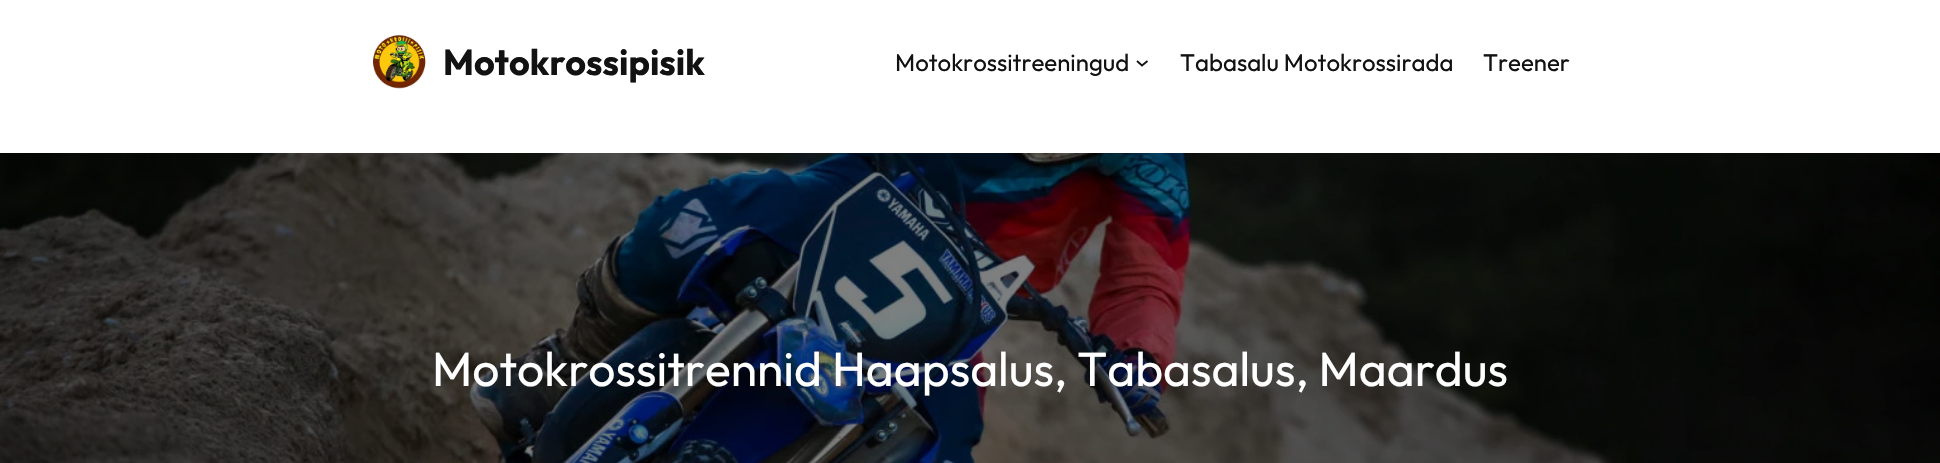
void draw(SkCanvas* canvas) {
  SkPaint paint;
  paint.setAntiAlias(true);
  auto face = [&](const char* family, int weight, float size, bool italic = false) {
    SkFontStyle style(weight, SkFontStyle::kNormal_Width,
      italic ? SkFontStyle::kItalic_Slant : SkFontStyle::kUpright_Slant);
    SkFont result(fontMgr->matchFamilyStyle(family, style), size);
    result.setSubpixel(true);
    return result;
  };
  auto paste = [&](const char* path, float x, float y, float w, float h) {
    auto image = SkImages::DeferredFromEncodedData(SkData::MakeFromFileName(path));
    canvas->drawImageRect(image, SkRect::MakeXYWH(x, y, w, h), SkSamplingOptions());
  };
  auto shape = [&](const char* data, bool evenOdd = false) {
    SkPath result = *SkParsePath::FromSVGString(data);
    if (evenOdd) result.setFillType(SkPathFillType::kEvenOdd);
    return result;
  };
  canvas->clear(0xffffffff);
  paste("img/1.png", 372, 34, 54, 55);
  paint.setStroke(true);
  paint.setStrokeWidth(1.8f);
  paint.setColor(0xff121212);
  canvas->drawPath(shape("M1137 61L1142 65.5L1147.5 61"), paint);
  paste("img/2.png", 0, 153, 1940, 310);
  auto f0 = face("Outfit", 700, 36);
  paint.setStroke(false);
  canvas->drawString("Motokrossipisik", 443, 75, f0, paint);
  auto f1 = face("Outfit", 400, 24);
  {
    const struct { const char* s; float x, y; } items[] = {
      {"Motokrossitreeningud", 895, 71},
      {"Tabasalu Motokrossirada", 1180, 71},
      {"Treener", 1483, 71},
    };
    for (auto [s, x, y] : items) {
      canvas->drawString(s, x, y, f1, paint);
    }
  }
  auto f2 = face("Outfit", 400, 48);
  paint.setColor(0xffffffff);
  canvas->drawString("Motokrossitrennid Haapsalus, Tabasalus, Maardus", 432, 386, f2, paint);
}
